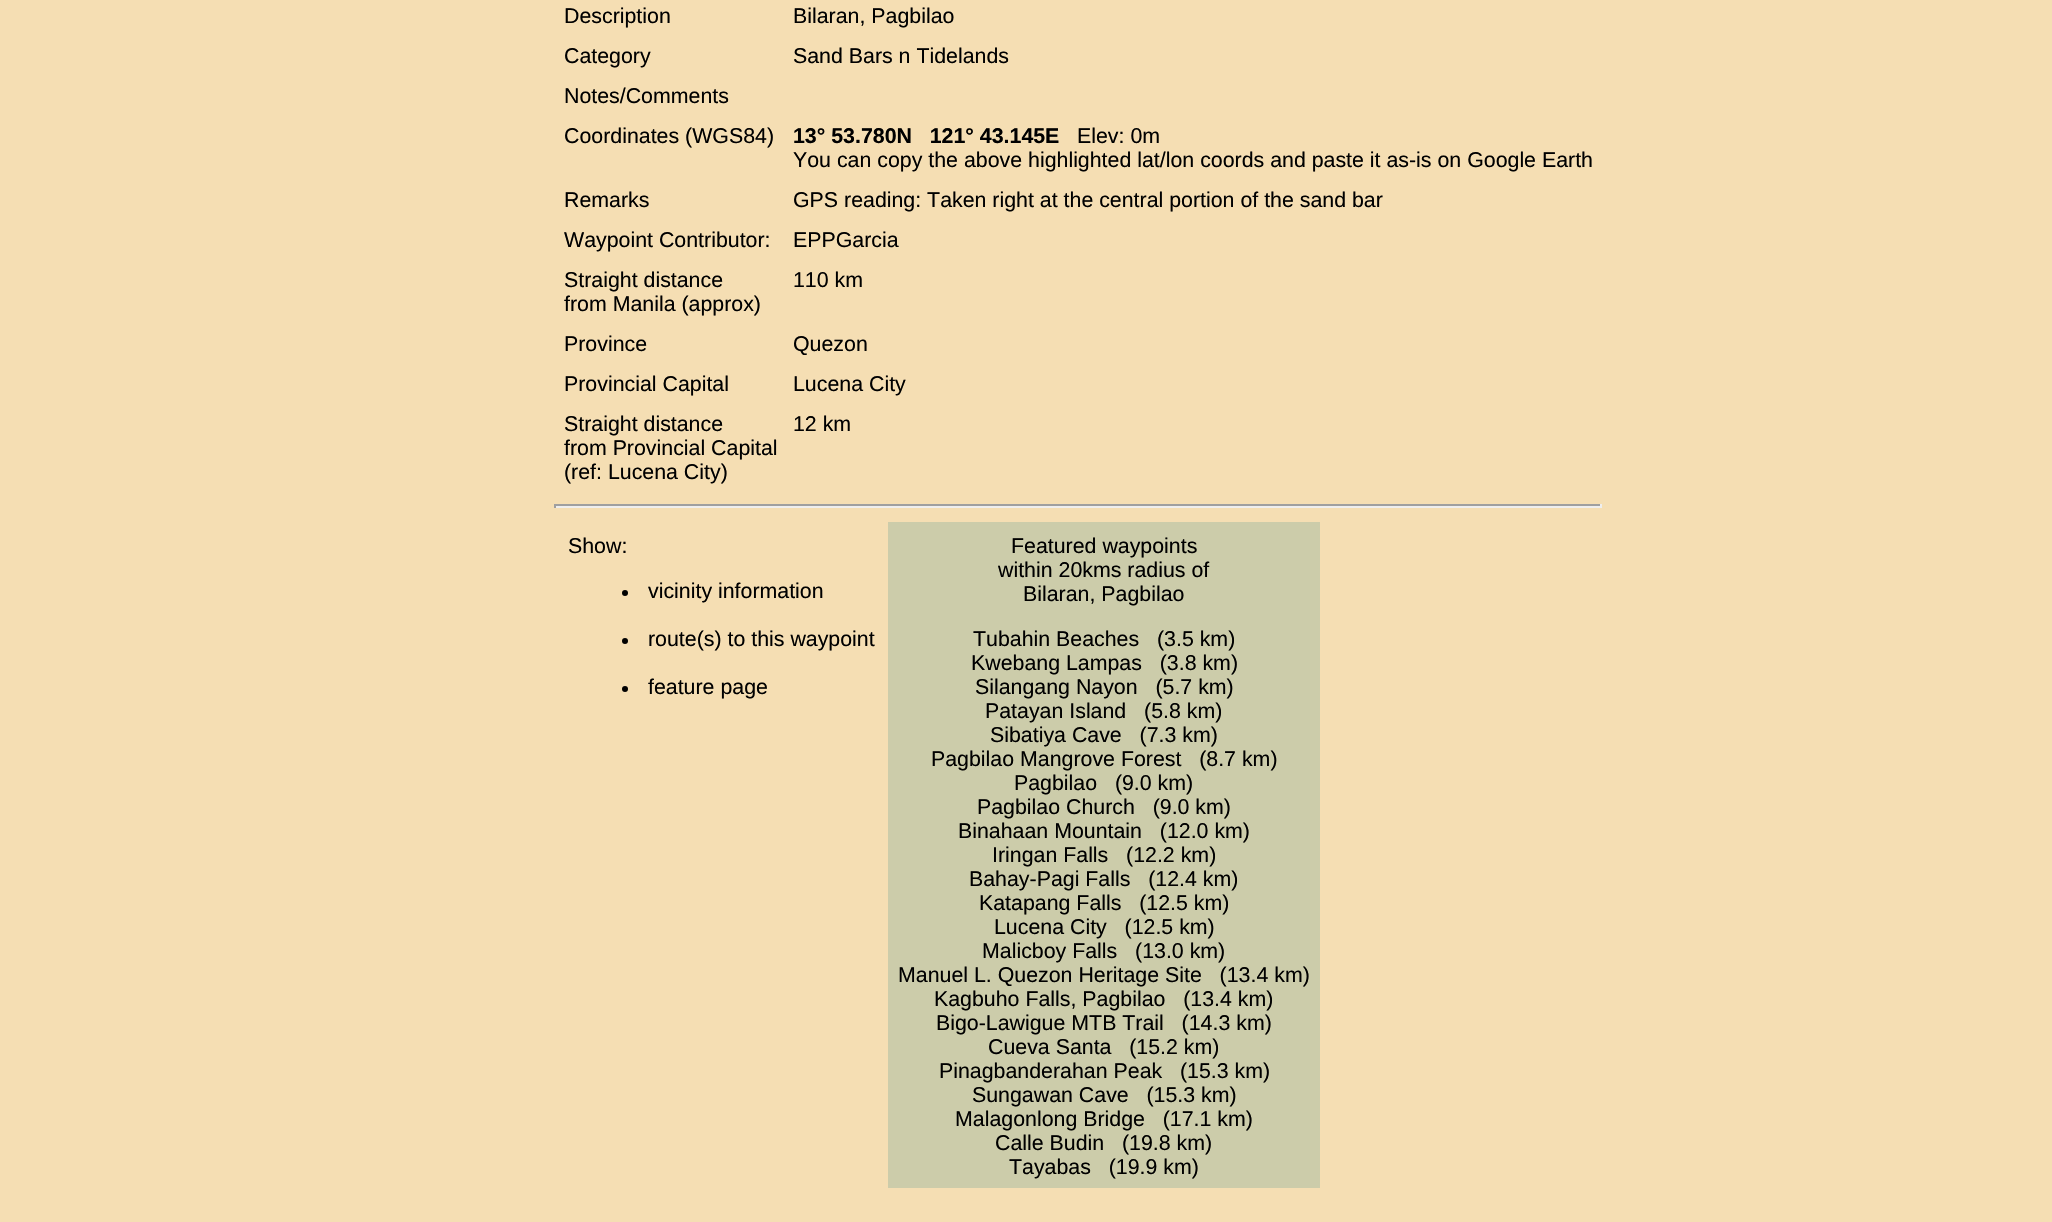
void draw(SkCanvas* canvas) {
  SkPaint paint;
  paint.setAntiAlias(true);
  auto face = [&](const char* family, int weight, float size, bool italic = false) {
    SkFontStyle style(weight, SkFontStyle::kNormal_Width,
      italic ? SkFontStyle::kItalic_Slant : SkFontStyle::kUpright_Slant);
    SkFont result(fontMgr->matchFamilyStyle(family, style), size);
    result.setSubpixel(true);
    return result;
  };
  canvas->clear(0xfff5deb3);
  {
    const struct { float x, y, w, h; SkColor color; } items[] = {
      {554, 504, 1048, 2, 0xff9f9f9f},
      {1600, 504, 2, 4, 0xffeeeeee},
      {554, 506, 1048, 2, 0xffeeeeee},
      {554, 504, 2, 4, 0xff9f9f9f},
    };
    for (auto [x, y, w, h, color] : items) {
      paint.setColor(color);
      canvas->drawRect(SkRect::MakeXYWH(x, y, w, h), paint);
    }
  }
  paint.setColor(0xff000000);
  canvas->drawCircle(625, 593, 3, paint);
  canvas->drawCircle(625, 641, 3, paint);
  canvas->drawCircle(625, 689, 3, paint);
  paint.setColor(0xffccccaa);
  canvas->drawRect(SkRect::MakeXYWH(888, 522, 432, 666), paint);
  auto f0 = face("Liberation Sans", 400, 21.35f);
  paint.setColor(0xff000000);
  {
    const struct { const char* s; float x, y; } items[] = {
      {"Description", 564, 23},
      {"Bilaran, Pagbilao", 793, 23},
      {"Category", 564, 63},
      {"Sand Bars n Tidelands", 793, 63},
      {"Notes/Comments", 564, 103},
      {"Coordinates (WGS84)", 564, 143},
    };
    for (auto [s, x, y] : items) {
      canvas->drawString(s, x, y, f0, paint);
    }
  }
  auto f1 = face("Liberation Sans", 700, 21.35f);
  canvas->drawString("13° 53.780N   121° 43.145E", 793, 143, f1, paint);
  {
    const struct { const char* s; float x, y; } items[] = {
      {"Elev: 0m", 1077, 143},
      {"You can copy the above highlighted lat/lon coords and paste it as-is on Google Earth", 793, 167},
      {"Remarks", 564, 207},
      {"GPS reading: Taken right at the central portion of the sand bar", 793, 207},
      {"Waypoint Contributor:", 564, 247},
      {"EPPGarcia", 793, 247},
      {"Straight distance", 564, 287},
      {"from Manila (approx)", 564, 311},
      {"110 km", 793, 287},
      {"Province", 564, 351},
      {"Quezon", 793, 351},
      {"Provincial Capital", 564, 391},
      {"Lucena City", 793, 391},
      {"Straight distance", 564, 431},
      {"from Provincial Capital", 564, 455},
      {"(ref: Lucena City)", 564, 479},
      {"12 km", 793, 431},
      {"Show:", 568, 553},
      {"vicinity information", 648, 598},
      {"route(s) to this waypoint", 648, 646},
      {"feature page", 648, 694},
      {"Featured waypoints", 1011, 553},
      {"within 20kms radius of", 998, 577},
      {"Bilaran, Pagbilao", 1023, 601},
      {"Tubahin Beaches   (3.5 km)", 973, 646},
      {"Kwebang Lampas   (3.8 km)", 971, 670},
      {"Silangang Nayon   (5.7 km)", 975, 694},
      {"Patayan Island   (5.8 km)", 985, 718},
      {"Sibatiya Cave   (7.3 km)", 990, 742},
      {"Pagbilao Mangrove Forest   (8.7 km)", 931, 766},
      {"Pagbilao   (9.0 km)", 1014, 790},
      {"Pagbilao Church   (9.0 km)", 977, 814},
      {"Binahaan Mountain   (12.0 km)", 958, 838},
      {"Iringan Falls   (12.2 km)", 992, 862},
      {"Bahay-Pagi Falls   (12.4 km)", 969, 886},
      {"Katapang Falls   (12.5 km)", 979, 910},
      {"Lucena City   (12.5 km)", 994, 934},
      {"Malicboy Falls   (13.0 km)", 982, 958},
      {"Manuel L. Quezon Heritage Site   (13.4 km)", 898, 982},
      {"Kagbuho Falls, Pagbilao   (13.4 km)", 934, 1006},
      {"Bigo-Lawigue MTB Trail   (14.3 km)", 936, 1030},
      {"Cueva Santa   (15.2 km)", 988, 1054},
      {"Pinagbanderahan Peak   (15.3 km)", 939, 1078},
      {"Sungawan Cave   (15.3 km)", 972, 1102},
      {"Malagonlong Bridge   (17.1 km)", 955, 1126},
      {"Calle Budin   (19.8 km)", 995, 1150},
      {"Tayabas   (19.9 km)", 1009, 1174},
    };
    for (auto [s, x, y] : items) {
      canvas->drawString(s, x, y, f0, paint);
    }
  }
}
